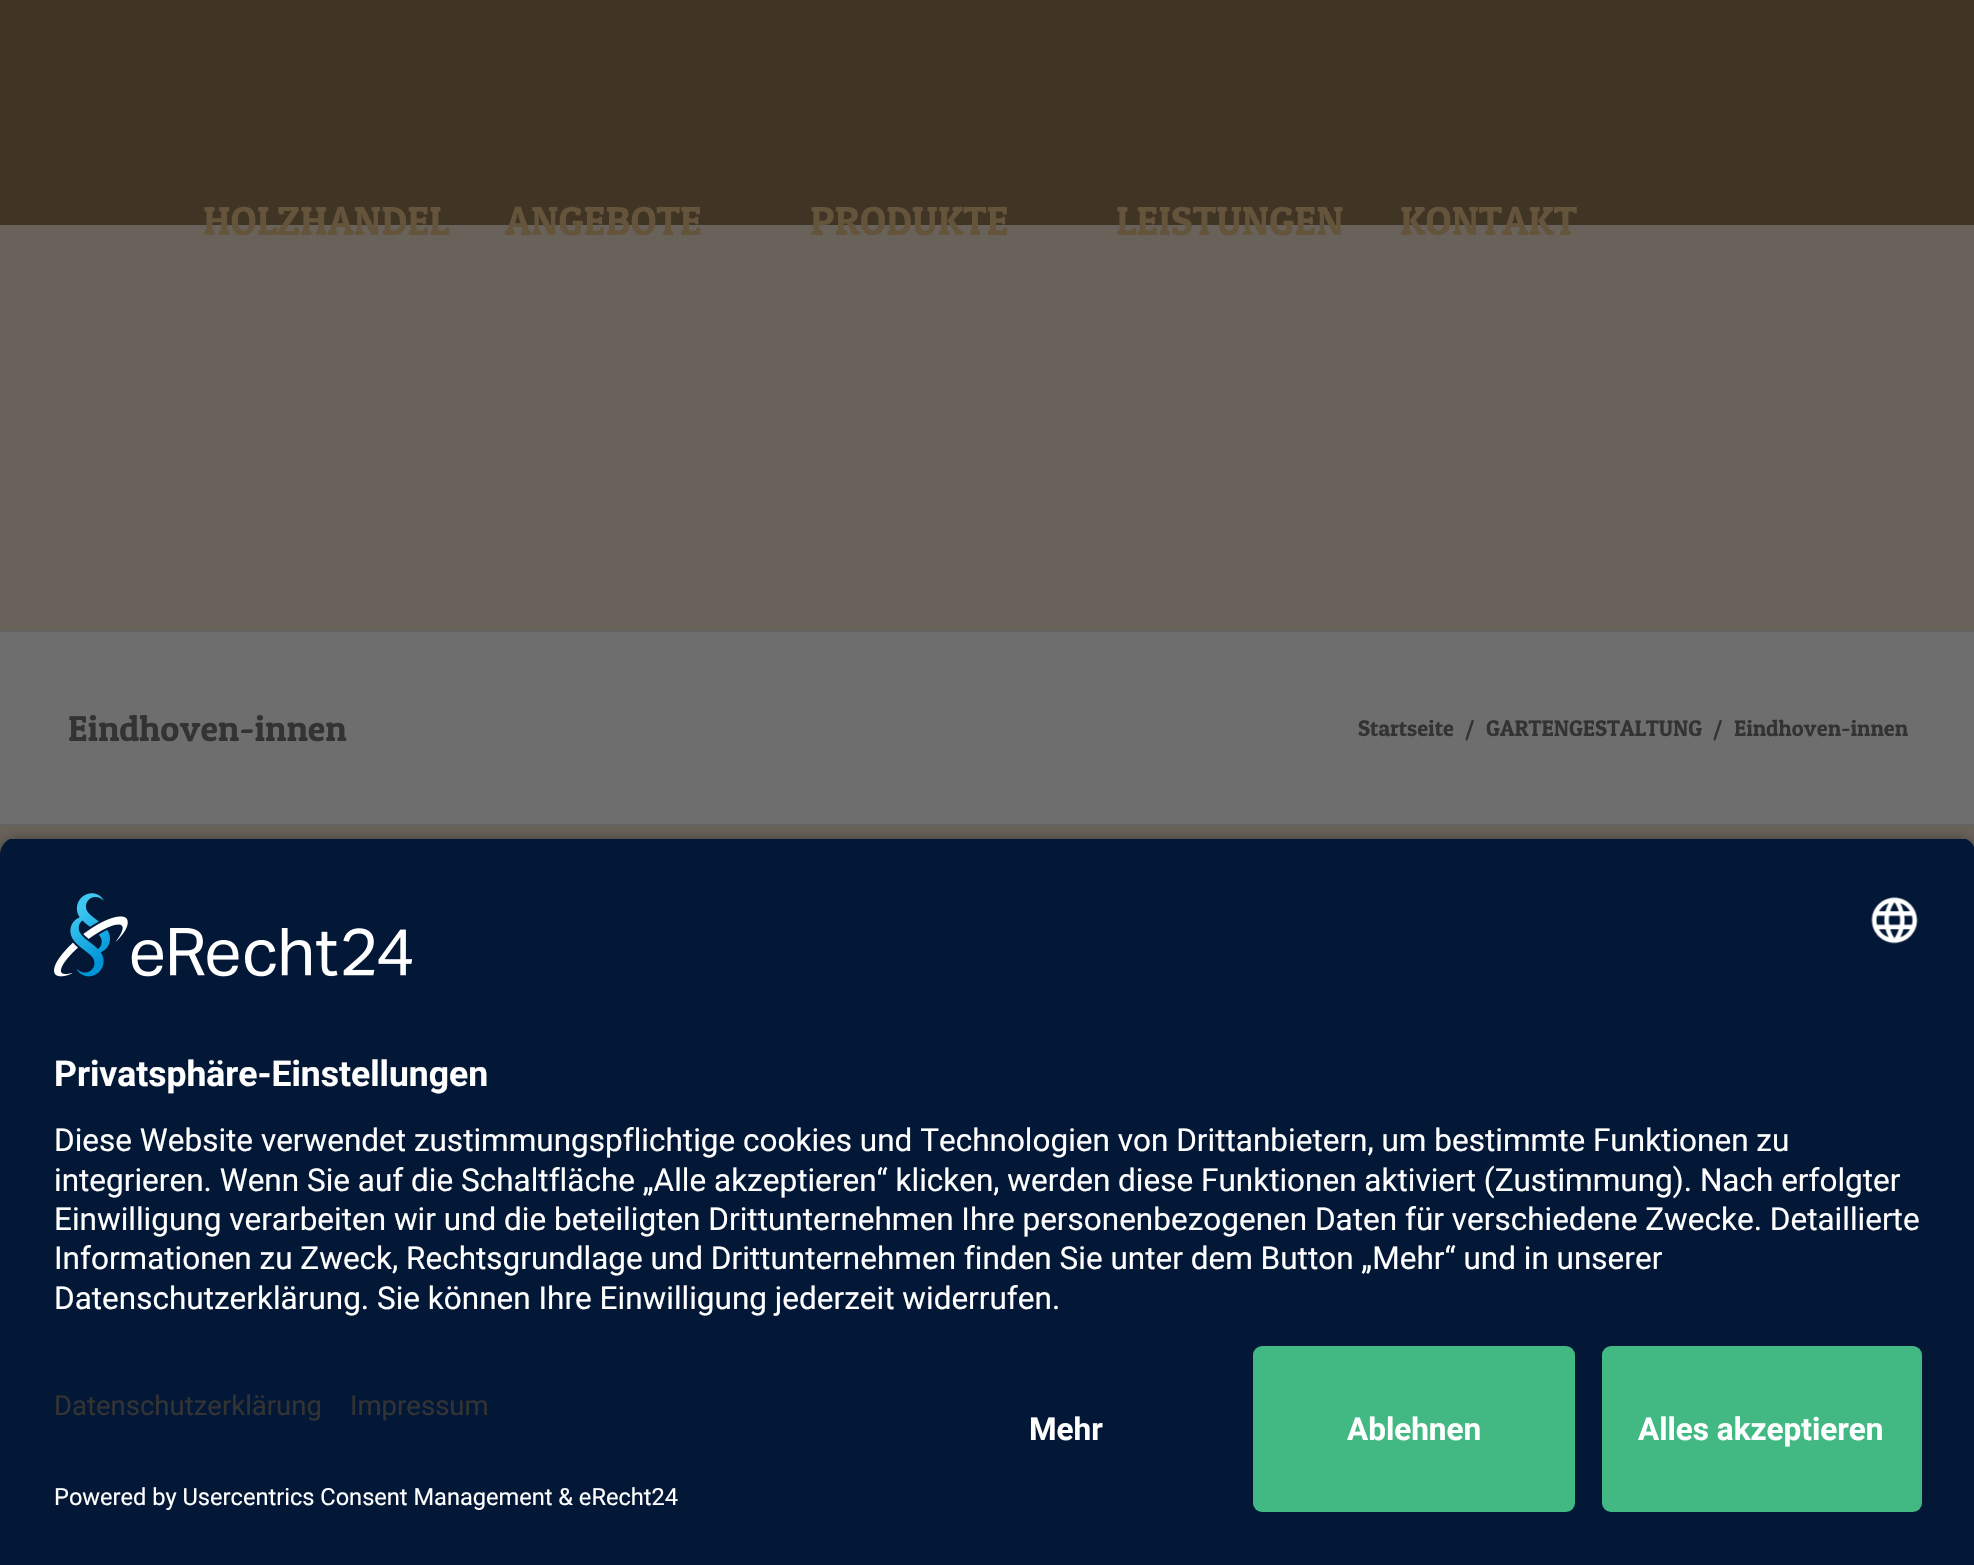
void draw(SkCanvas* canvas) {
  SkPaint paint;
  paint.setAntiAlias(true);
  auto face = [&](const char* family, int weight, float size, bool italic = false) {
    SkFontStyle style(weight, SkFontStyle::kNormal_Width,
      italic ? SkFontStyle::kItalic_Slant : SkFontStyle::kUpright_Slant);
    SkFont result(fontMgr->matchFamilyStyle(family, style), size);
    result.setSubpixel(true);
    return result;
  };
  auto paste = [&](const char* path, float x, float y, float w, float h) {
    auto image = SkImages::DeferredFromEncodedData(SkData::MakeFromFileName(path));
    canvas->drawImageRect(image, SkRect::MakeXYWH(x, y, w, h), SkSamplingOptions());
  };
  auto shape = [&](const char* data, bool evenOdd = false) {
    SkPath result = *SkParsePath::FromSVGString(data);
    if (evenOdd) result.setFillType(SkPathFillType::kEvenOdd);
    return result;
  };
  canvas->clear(0xff68625a);
  {
    const struct { float x, y, w, h; SkColor color; } items[] = {
      {0, 0, 1974, 225, 0xff403525},
      {0, 632, 1974, 192, 0xff6e6e6e},
      {0, 630, 1974, 2, 0xff636363},
      {0, 824, 1974, 2, 0xff636363},
    };
    for (auto [x, y, w, h, color] : items) {
      paint.setColor(color);
      canvas->drawRect(SkRect::MakeXYWH(x, y, w, h), paint);
    }
  }
  paint.setColor(0xcc000000);
  paint.setMaskFilter(SkMaskFilter::MakeBlur(kNormal_SkBlurStyle, 8));
  canvas->drawRoundRect(SkRect::MakeXYWH(0, 844, 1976, 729), 18, 18, paint);
  paint.setMaskFilter(nullptr);
  canvas->save();
  canvas->clipPath(shape("M18 837H1958C1968 837 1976 845 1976 855V1328H0V855C0 845 8 837 18 837Z"), true);
  paint.setColor(0xff021836);
  canvas->drawRect(SkRect::MakeXYWH(0, 839, 1974, 489), paint);
  canvas->restore();
  paste("img/1.png", 54, 893, 358, 84);
  paste("img/2.png", 1871, 897, 47, 47);
  canvas->drawRect(SkRect::MakeXYWH(0, 1328, 1974, 237), paint);
  paint.setColor(0xff42b983);
  canvas->drawRoundRect(SkRect::MakeXYWH(1253, 1346, 322, 166), 9, 9, paint);
  canvas->drawRoundRect(SkRect::MakeXYWH(1602, 1346, 320, 166), 9, 9, paint);
  auto f0 = face("Patua One", 400, 40.5f);
  paint.setColor(0xff63543b);
  {
    const struct { const char* s; float x, y; } items[] = {
      {"HOLZHANDEL", 203, 235},
      {"ANGEBOTE", 505, 235},
      {"PRODUKTE", 810, 235},
      {"LEISTUNGEN", 1116, 235},
      {"KONTAKT", 1400, 235},
    };
    for (auto [s, x, y] : items) {
      canvas->drawString(s, x, y, f0, paint);
    }
  }
  auto f1 = face("Patua One", 400, 36);
  paint.setColor(0xff333333);
  canvas->drawString("Eindhoven-innen", 68, 741, f1, paint);
  auto f2 = face("Patua One", 400, 22.5f);
  {
    const struct { const char* s; float x, y; } items[] = {
      {"Startseite", 1358, 736},
      {"/", 1465, 736},
      {"GARTENGESTALTUNG", 1486, 736},
      {"/", 1713, 736},
      {"Eindhoven-innen", 1734, 736},
    };
    for (auto [s, x, y] : items) {
      canvas->drawString(s, x, y, f2, paint);
    }
  }
  auto f3 = face("Roboto", 700, 35.5f);
  paint.setColor(0xffffffff);
  canvas->drawString("Privatsphäre-Einstellungen", 54, 1086, f3, paint);
  auto f4 = face("Roboto", 400, 31.5f);
  {
    const struct { const char* s; float x, y; } items[] = {
      {"Diese Website verwendet zustimmungspflichtige cookies und Technologien von Drittanbietern, um bestimmte Funktionen zu", 54, 1151},
      {"integrieren. Wenn Sie auf die Schaltfläche „Alle akzeptieren“ klicken, werden diese Funktionen aktiviert (Zustimmung). Nach erfolgter", 54, 1191},
      {"Einwilligung verarbeiten wir und die beteiligten Drittunternehmen Ihre personenbezogenen Daten für verschiedene Zwecke. Detaillierte", 54, 1230},
      {"Informationen zu Zweck, Rechtsgrundlage und Drittunternehmen finden Sie unter dem Button „Mehr“ und in unserer", 54, 1269},
      {"Datenschutzerklärung. Sie können Ihre Einwilligung jederzeit widerrufen.", 54, 1309},
    };
    for (auto [s, x, y] : items) {
      canvas->drawString(s, x, y, f4, paint);
    }
  }
  auto f5 = face("Roboto", 400, 27.5f);
  paint.setColor(0xff333333);
  canvas->drawString("Datenschutzerklärung", 54, 1415, f5, paint);
  canvas->drawString("Impressum", 350, 1415, f5, paint);
  auto f6 = face("Roboto", 400, 23.6f);
  paint.setColor(0xffffffff);
  canvas->drawString("Powered by Usercentrics Consent Management & eRecht24", 54, 1505, f6, paint);
  auto f7 = face("Roboto", 700, 31.5f);
  {
    const struct { const char* s; float x, y; } items[] = {
      {"Mehr", 1029, 1440},
      {"Ablehnen", 1347, 1440},
      {"Alles akzeptieren", 1638, 1440},
    };
    for (auto [s, x, y] : items) {
      canvas->drawString(s, x, y, f7, paint);
    }
  }
}
